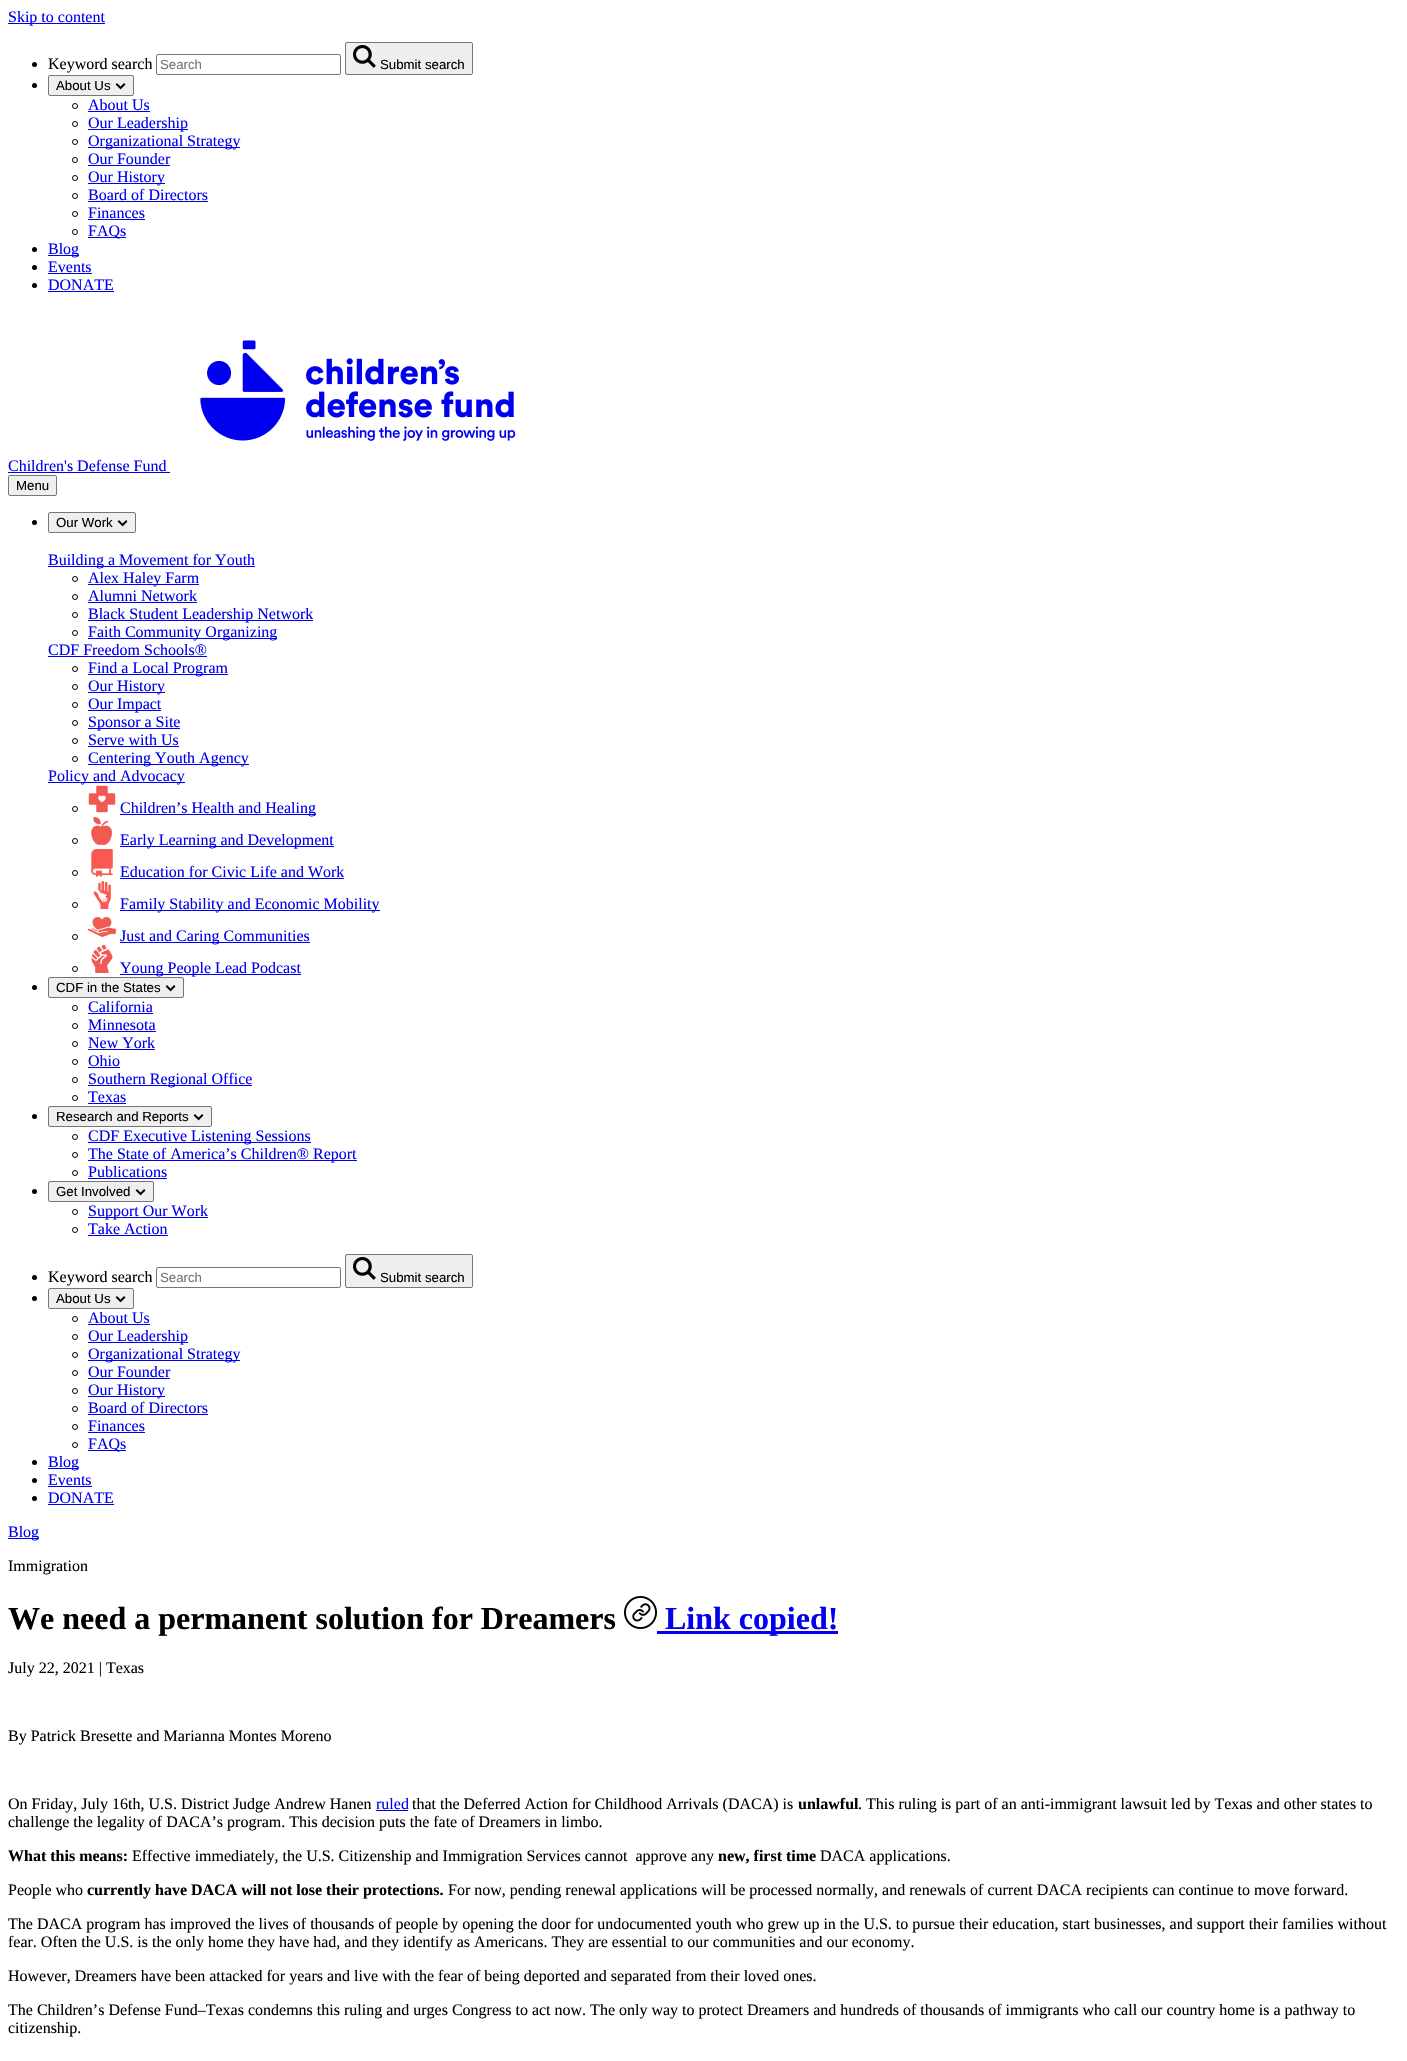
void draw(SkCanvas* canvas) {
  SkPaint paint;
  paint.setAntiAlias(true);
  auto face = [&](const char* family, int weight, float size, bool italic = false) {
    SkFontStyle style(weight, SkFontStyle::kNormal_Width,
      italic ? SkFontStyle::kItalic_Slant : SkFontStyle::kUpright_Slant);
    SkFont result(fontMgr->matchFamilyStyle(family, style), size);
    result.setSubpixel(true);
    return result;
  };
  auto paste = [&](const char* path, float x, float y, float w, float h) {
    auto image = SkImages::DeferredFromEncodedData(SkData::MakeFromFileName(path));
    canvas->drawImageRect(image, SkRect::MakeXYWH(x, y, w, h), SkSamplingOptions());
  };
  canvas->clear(0xffffffff);
  paint.setColor(0xff0000ee);
  canvas->drawRect(SkRect::MakeXYWH(8, 23, 97, 1), paint);
  paint.setColor(0xff000000);
  canvas->drawCircle(34.5f, 64.5f, 2.5f, paint);
  paint.setStroke(true);
  paint.setStrokeWidth(1);
  paint.setColor(0xff767676);
  canvas->drawRoundRect(SkRect::MakeXYWH(156.5f, 54.5f, 184, 20), 1.5f, 1.5f, paint);
  paint.setStroke(false);
  paint.setColor(0xffefefef);
  canvas->drawRoundRect(SkRect::MakeXYWH(345.5f, 42.5f, 127, 32), 1.5f, 1.5f, paint);
  paint.setStroke(true);
  paint.setColor(0xff767676);
  canvas->drawRoundRect(SkRect::MakeXYWH(345.5f, 42.5f, 127, 32), 1.5f, 1.5f, paint);
  paste("img/1.png", 353, 45, 23, 23);
  paint.setStroke(false);
  paint.setColor(0xff000000);
  canvas->drawCircle(34.5f, 85.5f, 2.5f, paint);
  paint.setColor(0xffefefef);
  canvas->drawRoundRect(SkRect::MakeXYWH(48.5f, 75.5f, 85, 20), 1.5f, 1.5f, paint);
  paint.setStroke(true);
  paint.setColor(0xff767676);
  canvas->drawRoundRect(SkRect::MakeXYWH(48.5f, 75.5f, 85, 20), 1.5f, 1.5f, paint);
  paste("img/2.png", 115, 83, 11, 7);
  paint.setColor(0xff000000);
  canvas->drawCircle(75, 106, 2.5f, paint);
  paint.setStroke(false);
  paint.setColor(0xff0000ee);
  canvas->drawRect(SkRect::MakeXYWH(88, 111, 62, 1), paint);
  paint.setStroke(true);
  paint.setColor(0xff000000);
  canvas->drawCircle(75, 124, 2.5f, paint);
  paint.setStroke(false);
  paint.setColor(0xff0000ee);
  canvas->drawRect(SkRect::MakeXYWH(88, 129, 100, 1), paint);
  paint.setStroke(true);
  paint.setColor(0xff000000);
  canvas->drawCircle(75, 142, 2.5f, paint);
  paint.setStroke(false);
  paint.setColor(0xff0000ee);
  canvas->drawRect(SkRect::MakeXYWH(88, 147, 152, 1), paint);
  paint.setStroke(true);
  paint.setColor(0xff000000);
  canvas->drawCircle(75, 160, 2.5f, paint);
  paint.setStroke(false);
  paint.setColor(0xff0000ee);
  canvas->drawRect(SkRect::MakeXYWH(88, 165, 82, 1), paint);
  paint.setStroke(true);
  paint.setColor(0xff000000);
  canvas->drawCircle(75, 178, 2.5f, paint);
  paint.setStroke(false);
  paint.setColor(0xff0000ee);
  canvas->drawRect(SkRect::MakeXYWH(88, 183, 77, 1), paint);
  paint.setStroke(true);
  paint.setColor(0xff000000);
  canvas->drawCircle(75, 196, 2.5f, paint);
  paint.setStroke(false);
  paint.setColor(0xff0000ee);
  canvas->drawRect(SkRect::MakeXYWH(88, 201, 120, 1), paint);
  paint.setStroke(true);
  paint.setColor(0xff000000);
  canvas->drawCircle(75, 214, 2.5f, paint);
  paint.setStroke(false);
  paint.setColor(0xff0000ee);
  canvas->drawRect(SkRect::MakeXYWH(88, 219, 57, 1), paint);
  paint.setStroke(true);
  paint.setColor(0xff000000);
  canvas->drawCircle(75, 232, 2.5f, paint);
  paint.setStroke(false);
  paint.setColor(0xff0000ee);
  canvas->drawRect(SkRect::MakeXYWH(88, 237, 38, 1), paint);
  paint.setColor(0xff000000);
  canvas->drawCircle(34.5f, 249.5f, 2.5f, paint);
  paint.setColor(0xff0000ee);
  canvas->drawRect(SkRect::MakeXYWH(48, 255, 31, 1), paint);
  paint.setColor(0xff000000);
  canvas->drawCircle(34.5f, 267.5f, 2.5f, paint);
  paint.setColor(0xff0000ee);
  canvas->drawRect(SkRect::MakeXYWH(48, 273, 44, 1), paint);
  paint.setColor(0xff000000);
  canvas->drawCircle(34.5f, 285.5f, 2.5f, paint);
  paint.setColor(0xff0000ee);
  canvas->drawRect(SkRect::MakeXYWH(48, 291, 66, 1), paint);
  paste("img/3.png", 200, 340, 316, 101);
  canvas->drawRect(SkRect::MakeXYWH(8, 472, 162, 1), paint);
  paint.setColor(0xffefefef);
  canvas->drawRoundRect(SkRect::MakeXYWH(8.5f, 475.5f, 48, 20), 1.5f, 1.5f, paint);
  paint.setStroke(true);
  paint.setColor(0xff767676);
  canvas->drawRoundRect(SkRect::MakeXYWH(8.5f, 475.5f, 48, 20), 1.5f, 1.5f, paint);
  paint.setStroke(false);
  paint.setColor(0xff000000);
  canvas->drawCircle(34.5f, 522.5f, 2.5f, paint);
  paint.setColor(0xffefefef);
  canvas->drawRoundRect(SkRect::MakeXYWH(48.5f, 512.5f, 87, 20), 1.5f, 1.5f, paint);
  paint.setStroke(true);
  paint.setColor(0xff767676);
  canvas->drawRoundRect(SkRect::MakeXYWH(48.5f, 512.5f, 87, 20), 1.5f, 1.5f, paint);
  paste("img/2.png", 117, 520, 11, 7);
  paint.setStroke(false);
  paint.setColor(0xff0000ee);
  canvas->drawRect(SkRect::MakeXYWH(48, 566, 207, 1), paint);
  paint.setStroke(true);
  paint.setColor(0xff000000);
  canvas->drawCircle(75, 579, 2.5f, paint);
  paint.setStroke(false);
  paint.setColor(0xff0000ee);
  canvas->drawRect(SkRect::MakeXYWH(88, 584, 111, 1), paint);
  paint.setStroke(true);
  paint.setColor(0xff000000);
  canvas->drawCircle(75, 597, 2.5f, paint);
  paint.setStroke(false);
  paint.setColor(0xff0000ee);
  canvas->drawRect(SkRect::MakeXYWH(88, 602, 109, 1), paint);
  paint.setStroke(true);
  paint.setColor(0xff000000);
  canvas->drawCircle(75, 615, 2.5f, paint);
  paint.setStroke(false);
  paint.setColor(0xff0000ee);
  canvas->drawRect(SkRect::MakeXYWH(88, 620, 225, 1), paint);
  paint.setStroke(true);
  paint.setColor(0xff000000);
  canvas->drawCircle(75, 633, 2.5f, paint);
  paint.setStroke(false);
  paint.setColor(0xff0000ee);
  canvas->drawRect(SkRect::MakeXYWH(88, 638, 189, 1), paint);
  canvas->drawRect(SkRect::MakeXYWH(48, 656, 159, 1), paint);
  paint.setStroke(true);
  paint.setColor(0xff000000);
  canvas->drawCircle(75, 669, 2.5f, paint);
  paint.setStroke(false);
  paint.setColor(0xff0000ee);
  canvas->drawRect(SkRect::MakeXYWH(88, 674, 140, 1), paint);
  paint.setStroke(true);
  paint.setColor(0xff000000);
  canvas->drawCircle(75, 687, 2.5f, paint);
  paint.setStroke(false);
  paint.setColor(0xff0000ee);
  canvas->drawRect(SkRect::MakeXYWH(88, 692, 77, 1), paint);
  paint.setStroke(true);
  paint.setColor(0xff000000);
  canvas->drawCircle(75, 705, 2.5f, paint);
  paint.setStroke(false);
  paint.setColor(0xff0000ee);
  canvas->drawRect(SkRect::MakeXYWH(88, 710, 73, 1), paint);
  paint.setStroke(true);
  paint.setColor(0xff000000);
  canvas->drawCircle(75, 723, 2.5f, paint);
  paint.setStroke(false);
  paint.setColor(0xff0000ee);
  canvas->drawRect(SkRect::MakeXYWH(88, 728, 92, 1), paint);
  paint.setStroke(true);
  paint.setColor(0xff000000);
  canvas->drawCircle(75, 741, 2.5f, paint);
  paint.setStroke(false);
  paint.setColor(0xff0000ee);
  canvas->drawRect(SkRect::MakeXYWH(88, 746, 91, 1), paint);
  paint.setStroke(true);
  paint.setColor(0xff000000);
  canvas->drawCircle(75, 759, 2.5f, paint);
  paint.setStroke(false);
  paint.setColor(0xff0000ee);
  canvas->drawRect(SkRect::MakeXYWH(88, 764, 161, 1), paint);
  canvas->drawRect(SkRect::MakeXYWH(48, 782, 137, 1), paint);
  paint.setStroke(true);
  paint.setColor(0xff000000);
  canvas->drawCircle(75, 809, 2.5f, paint);
  paste("img/4.png", 88, 785, 28, 28);
  paint.setStroke(false);
  paint.setColor(0xff0000ee);
  canvas->drawRect(SkRect::MakeXYWH(120, 814, 196, 1), paint);
  paint.setStroke(true);
  paint.setColor(0xff000000);
  canvas->drawCircle(75, 841, 2.5f, paint);
  paste("img/5.png", 91, 817, 21, 28);
  paint.setStroke(false);
  paint.setColor(0xff0000ee);
  canvas->drawRect(SkRect::MakeXYWH(120, 846, 214, 1), paint);
  paint.setStroke(true);
  paint.setColor(0xff000000);
  canvas->drawCircle(75, 873, 2.5f, paint);
  paste("img/6.png", 91, 849, 22, 28);
  paint.setStroke(false);
  paint.setColor(0xff0000ee);
  canvas->drawRect(SkRect::MakeXYWH(120, 878, 224, 1), paint);
  paint.setStroke(true);
  paint.setColor(0xff000000);
  canvas->drawCircle(75, 905, 2.5f, paint);
  paste("img/7.png", 93, 881, 18, 28);
  paint.setStroke(false);
  paint.setColor(0xff0000ee);
  canvas->drawRect(SkRect::MakeXYWH(120, 910, 260, 1), paint);
  paint.setStroke(true);
  paint.setColor(0xff000000);
  canvas->drawCircle(75, 937, 2.5f, paint);
  paste("img/8.png", 88, 917, 28, 20);
  paint.setStroke(false);
  paint.setColor(0xff0000ee);
  canvas->drawRect(SkRect::MakeXYWH(120, 942, 190, 1), paint);
  paint.setStroke(true);
  paint.setColor(0xff000000);
  canvas->drawCircle(75, 969, 2.5f, paint);
  paste("img/9.png", 91, 945, 22, 28);
  paint.setStroke(false);
  paint.setColor(0xff0000ee);
  canvas->drawRect(SkRect::MakeXYWH(120, 974, 181, 1), paint);
  paint.setColor(0xff000000);
  canvas->drawCircle(34.5f, 987.5f, 2.5f, paint);
  paint.setColor(0xffefefef);
  canvas->drawRoundRect(SkRect::MakeXYWH(48.5f, 977.5f, 135, 20), 1.5f, 1.5f, paint);
  paint.setStroke(true);
  paint.setColor(0xff767676);
  canvas->drawRoundRect(SkRect::MakeXYWH(48.5f, 977.5f, 135, 20), 1.5f, 1.5f, paint);
  paste("img/2.png", 165, 985, 11, 7);
  paint.setColor(0xff000000);
  canvas->drawCircle(75, 1008, 2.5f, paint);
  paint.setStroke(false);
  paint.setColor(0xff0000ee);
  canvas->drawRect(SkRect::MakeXYWH(88, 1013, 65, 1), paint);
  paint.setStroke(true);
  paint.setColor(0xff000000);
  canvas->drawCircle(75, 1026, 2.5f, paint);
  paint.setStroke(false);
  paint.setColor(0xff0000ee);
  canvas->drawRect(SkRect::MakeXYWH(88, 1031, 68, 1), paint);
  paint.setStroke(true);
  paint.setColor(0xff000000);
  canvas->drawCircle(75, 1044, 2.5f, paint);
  paint.setStroke(false);
  paint.setColor(0xff0000ee);
  canvas->drawRect(SkRect::MakeXYWH(88, 1049, 67, 1), paint);
  paint.setStroke(true);
  paint.setColor(0xff000000);
  canvas->drawCircle(75, 1062, 2.5f, paint);
  paint.setStroke(false);
  paint.setColor(0xff0000ee);
  canvas->drawRect(SkRect::MakeXYWH(88, 1067, 32, 1), paint);
  paint.setStroke(true);
  paint.setColor(0xff000000);
  canvas->drawCircle(75, 1080, 2.5f, paint);
  paint.setStroke(false);
  paint.setColor(0xff0000ee);
  canvas->drawRect(SkRect::MakeXYWH(88, 1085, 164, 1), paint);
  paint.setStroke(true);
  paint.setColor(0xff000000);
  canvas->drawCircle(75, 1098, 2.5f, paint);
  paint.setStroke(false);
  paint.setColor(0xff0000ee);
  canvas->drawRect(SkRect::MakeXYWH(88, 1103, 38, 1), paint);
  paint.setColor(0xff000000);
  canvas->drawCircle(34.5f, 1116.5f, 2.5f, paint);
  paint.setColor(0xffefefef);
  canvas->drawRoundRect(SkRect::MakeXYWH(48.5f, 1106.5f, 163, 20), 1.5f, 1.5f, paint);
  paint.setStroke(true);
  paint.setColor(0xff767676);
  canvas->drawRoundRect(SkRect::MakeXYWH(48.5f, 1106.5f, 163, 20), 1.5f, 1.5f, paint);
  paste("img/2.png", 193, 1114, 11, 7);
  paint.setColor(0xff000000);
  canvas->drawCircle(75, 1137, 2.5f, paint);
  paint.setStroke(false);
  paint.setColor(0xff0000ee);
  canvas->drawRect(SkRect::MakeXYWH(88, 1142, 223, 1), paint);
  paint.setStroke(true);
  paint.setColor(0xff000000);
  canvas->drawCircle(75, 1155, 2.5f, paint);
  paint.setStroke(false);
  paint.setColor(0xff0000ee);
  canvas->drawRect(SkRect::MakeXYWH(88, 1160, 269, 1), paint);
  paint.setStroke(true);
  paint.setColor(0xff000000);
  canvas->drawCircle(75, 1173, 2.5f, paint);
  paint.setStroke(false);
  paint.setColor(0xff0000ee);
  canvas->drawRect(SkRect::MakeXYWH(88, 1178, 79, 1), paint);
  paint.setColor(0xff000000);
  canvas->drawCircle(34.5f, 1191.5f, 2.5f, paint);
  paint.setColor(0xffefefef);
  canvas->drawRoundRect(SkRect::MakeXYWH(48.5f, 1181.5f, 105, 20), 1.5f, 1.5f, paint);
  paint.setStroke(true);
  paint.setColor(0xff767676);
  canvas->drawRoundRect(SkRect::MakeXYWH(48.5f, 1181.5f, 105, 20), 1.5f, 1.5f, paint);
  paste("img/2.png", 135, 1189, 11, 7);
  paint.setColor(0xff000000);
  canvas->drawCircle(75, 1212, 2.5f, paint);
  paint.setStroke(false);
  paint.setColor(0xff0000ee);
  canvas->drawRect(SkRect::MakeXYWH(88, 1217, 120, 1), paint);
  paint.setStroke(true);
  paint.setColor(0xff000000);
  canvas->drawCircle(75, 1230, 2.5f, paint);
  paint.setStroke(false);
  paint.setColor(0xff0000ee);
  canvas->drawRect(SkRect::MakeXYWH(88, 1235, 80, 1), paint);
  paint.setColor(0xff000000);
  canvas->drawCircle(34.5f, 1277.5f, 2.5f, paint);
  paint.setStroke(true);
  paint.setColor(0xff767676);
  canvas->drawRoundRect(SkRect::MakeXYWH(156.5f, 1267.5f, 184, 20), 1.5f, 1.5f, paint);
  paint.setStroke(false);
  paint.setColor(0xffefefef);
  canvas->drawRoundRect(SkRect::MakeXYWH(345.5f, 1254.5f, 127, 33), 1.5f, 1.5f, paint);
  paint.setStroke(true);
  paint.setColor(0xff767676);
  canvas->drawRoundRect(SkRect::MakeXYWH(345.5f, 1254.5f, 127, 33), 1.5f, 1.5f, paint);
  paste("img/1.png", 353, 1257, 23, 23);
  paint.setStroke(false);
  paint.setColor(0xff000000);
  canvas->drawCircle(34.5f, 1298.5f, 2.5f, paint);
  paint.setColor(0xffefefef);
  canvas->drawRoundRect(SkRect::MakeXYWH(48.5f, 1288.5f, 85, 20), 1.5f, 1.5f, paint);
  paint.setStroke(true);
  paint.setColor(0xff767676);
  canvas->drawRoundRect(SkRect::MakeXYWH(48.5f, 1288.5f, 85, 20), 1.5f, 1.5f, paint);
  paste("img/2.png", 115, 1296, 11, 7);
  paint.setColor(0xff000000);
  canvas->drawCircle(75, 1319, 2.5f, paint);
  paint.setStroke(false);
  paint.setColor(0xff0000ee);
  canvas->drawRect(SkRect::MakeXYWH(88, 1324, 62, 1), paint);
  paint.setStroke(true);
  paint.setColor(0xff000000);
  canvas->drawCircle(75, 1337, 2.5f, paint);
  paint.setStroke(false);
  paint.setColor(0xff0000ee);
  canvas->drawRect(SkRect::MakeXYWH(88, 1342, 100, 1), paint);
  paint.setStroke(true);
  paint.setColor(0xff000000);
  canvas->drawCircle(75, 1355, 2.5f, paint);
  paint.setStroke(false);
  paint.setColor(0xff0000ee);
  canvas->drawRect(SkRect::MakeXYWH(88, 1360, 152, 1), paint);
  paint.setStroke(true);
  paint.setColor(0xff000000);
  canvas->drawCircle(75, 1373, 2.5f, paint);
  paint.setStroke(false);
  paint.setColor(0xff0000ee);
  canvas->drawRect(SkRect::MakeXYWH(88, 1378, 82, 1), paint);
  paint.setStroke(true);
  paint.setColor(0xff000000);
  canvas->drawCircle(75, 1391, 2.5f, paint);
  paint.setStroke(false);
  paint.setColor(0xff0000ee);
  canvas->drawRect(SkRect::MakeXYWH(88, 1396, 77, 1), paint);
  paint.setStroke(true);
  paint.setColor(0xff000000);
  canvas->drawCircle(75, 1409, 2.5f, paint);
  paint.setStroke(false);
  paint.setColor(0xff0000ee);
  canvas->drawRect(SkRect::MakeXYWH(88, 1414, 120, 1), paint);
  paint.setStroke(true);
  paint.setColor(0xff000000);
  canvas->drawCircle(75, 1427, 2.5f, paint);
  paint.setStroke(false);
  paint.setColor(0xff0000ee);
  canvas->drawRect(SkRect::MakeXYWH(88, 1432, 57, 1), paint);
  paint.setStroke(true);
  paint.setColor(0xff000000);
  canvas->drawCircle(75, 1445, 2.5f, paint);
  paint.setStroke(false);
  paint.setColor(0xff0000ee);
  canvas->drawRect(SkRect::MakeXYWH(88, 1450, 38, 1), paint);
  paint.setColor(0xff000000);
  canvas->drawCircle(34.5f, 1462.5f, 2.5f, paint);
  paint.setColor(0xff0000ee);
  canvas->drawRect(SkRect::MakeXYWH(48, 1468, 31, 1), paint);
  paint.setColor(0xff000000);
  canvas->drawCircle(34.5f, 1480.5f, 2.5f, paint);
  paint.setColor(0xff0000ee);
  canvas->drawRect(SkRect::MakeXYWH(48, 1486, 44, 1), paint);
  paint.setColor(0xff000000);
  canvas->drawCircle(34.5f, 1498.5f, 2.5f, paint);
  paint.setColor(0xff0000ee);
  canvas->drawRect(SkRect::MakeXYWH(48, 1504, 66, 1), paint);
  canvas->drawRect(SkRect::MakeXYWH(8, 1538, 31, 1), paint);
  paste("img/10.png", 624, 1596, 33, 33);
  canvas->drawRect(SkRect::MakeXYWH(657, 1631, 181, 3), paint);
  canvas->drawRect(SkRect::MakeXYWH(376, 1810, 32, 1), paint);
  auto f0 = face("Liberation Serif", 400, 16);
  canvas->drawString("Skip to content", 8, 22, f0, paint);
  paint.setColor(0xff000000);
  canvas->drawString("Keyword search", 48, 69, f0, paint);
  auto f1 = face("Liberation Sans", 400, 13.25f);
  paint.setColor(0xff757575);
  canvas->drawString("Search", 160, 69, f1, paint);
  paint.setColor(0xff000000);
  canvas->drawString("Submit search", 380, 69, f1, paint);
  canvas->drawString("About Us", 56, 90, f1, paint);
  paint.setColor(0xff0000ee);
  {
    const struct { const char* s; float x, y; } items[] = {
      {"About Us", 88, 110},
      {"Our Leadership", 88, 128},
      {"Organizational Strategy", 88, 146},
      {"Our Founder", 88, 164},
      {"Our History", 88, 182},
      {"Board of Directors", 88, 200},
      {"Finances", 88, 218},
      {"FAQs", 88, 236},
      {"Blog", 48, 254},
      {"Events", 48, 272},
      {"DONATE", 48, 290},
      {"Children's Defense Fund", 8, 471},
    };
    for (auto [s, x, y] : items) {
      canvas->drawString(s, x, y, f0, paint);
    }
  }
  paint.setColor(0xff000000);
  canvas->drawString("Menu", 16, 490, f1, paint);
  canvas->drawString("Our Work", 56, 527, f1, paint);
  paint.setColor(0xff0000ee);
  {
    const struct { const char* s; float x, y; } items[] = {
      {"Building a Movement for Youth", 48, 565},
      {"Alex Haley Farm", 88, 583},
      {"Alumni Network", 88, 601},
      {"Black Student Leadership Network", 88, 619},
      {"Faith Community Organizing", 88, 637},
      {"CDF Freedom Schools®", 48, 655},
      {"Find a Local Program", 88, 673},
      {"Our History", 88, 691},
      {"Our Impact", 88, 709},
      {"Sponsor a Site", 88, 727},
      {"Serve with Us", 88, 745},
      {"Centering Youth Agency", 88, 763},
      {"Policy and Advocacy", 48, 781},
      {"Children’s Health and Healing", 120, 813},
      {"Early Learning and Development", 120, 845},
      {"Education for Civic Life and Work", 120, 877},
      {"Family Stability and Economic Mobility", 120, 909},
      {"Just and Caring Communities", 120, 941},
      {"Young People Lead Podcast", 120, 973},
    };
    for (auto [s, x, y] : items) {
      canvas->drawString(s, x, y, f0, paint);
    }
  }
  paint.setColor(0xff000000);
  canvas->drawString("CDF in the States", 56, 992, f1, paint);
  paint.setColor(0xff0000ee);
  {
    const struct { const char* s; float x, y; } items[] = {
      {"California", 88, 1012},
      {"Minnesota", 88, 1030},
      {"New York", 88, 1048},
      {"Ohio", 88, 1066},
      {"Southern Regional Office", 88, 1084},
      {"Texas", 88, 1102},
    };
    for (auto [s, x, y] : items) {
      canvas->drawString(s, x, y, f0, paint);
    }
  }
  paint.setColor(0xff000000);
  canvas->drawString("Research and Reports", 56, 1121, f1, paint);
  paint.setColor(0xff0000ee);
  {
    const struct { const char* s; float x, y; } items[] = {
      {"CDF Executive Listening Sessions", 88, 1141},
      {"The State of America’s Children® Report", 88, 1159},
      {"Publications", 88, 1177},
    };
    for (auto [s, x, y] : items) {
      canvas->drawString(s, x, y, f0, paint);
    }
  }
  paint.setColor(0xff000000);
  canvas->drawString("Get Involved", 56, 1196, f1, paint);
  paint.setColor(0xff0000ee);
  canvas->drawString("Support Our Work", 88, 1216, f0, paint);
  canvas->drawString("Take Action", 88, 1234, f0, paint);
  paint.setColor(0xff000000);
  canvas->drawString("Keyword search", 48, 1282, f0, paint);
  paint.setColor(0xff757575);
  canvas->drawString("Search", 160, 1282, f1, paint);
  paint.setColor(0xff000000);
  canvas->drawString("Submit search", 380, 1282, f1, paint);
  canvas->drawString("About Us", 56, 1303, f1, paint);
  paint.setColor(0xff0000ee);
  {
    const struct { const char* s; float x, y; } items[] = {
      {"About Us", 88, 1323},
      {"Our Leadership", 88, 1341},
      {"Organizational Strategy", 88, 1359},
      {"Our Founder", 88, 1377},
      {"Our History", 88, 1395},
      {"Board of Directors", 88, 1413},
      {"Finances", 88, 1431},
      {"FAQs", 88, 1449},
      {"Blog", 48, 1467},
      {"Events", 48, 1485},
      {"DONATE", 48, 1503},
      {"Blog", 8, 1537},
    };
    for (auto [s, x, y] : items) {
      canvas->drawString(s, x, y, f0, paint);
    }
  }
  paint.setColor(0xff000000);
  canvas->drawString("Immigration", 8, 1571, f0, paint);
  auto f2 = face("Liberation Serif", 700, 32);
  canvas->drawString("We need a permanent solution for Dreamers", 8, 1629, f2, paint);
  paint.setColor(0xff0000ee);
  canvas->drawString("Link copied!", 665, 1629, f2, paint);
  paint.setColor(0xff000000);
  {
    const struct { const char* s; float x, y; } items[] = {
      {"July 22, 2021 | Texas", 8, 1673},
      {"By Patrick Bresette and Marianna Montes Moreno", 8, 1741},
      {"On Friday, July 16th, U.S. District Judge Andrew Hanen", 8, 1809},
    };
    for (auto [s, x, y] : items) {
      canvas->drawString(s, x, y, f0, paint);
    }
  }
  paint.setColor(0xff0000ee);
  canvas->drawString("ruled", 376, 1809, f0, paint);
  paint.setColor(0xff000000);
  canvas->drawString("that the Deferred Action for Childhood Arrivals (DACA) is", 412, 1809, f0, paint);
  auto f3 = face("Liberation Serif", 700, 16);
  canvas->drawString("unlawful", 798, 1809, f3, paint);
  canvas->drawString(". This ruling is part of an anti-immigrant lawsuit led by Texas and other states to", 858, 1809, f0, paint);
  canvas->drawString("challenge the legality of DACA’s program. This decision puts the fate of Dreamers in limbo.", 8, 1827, f0, paint);
  canvas->drawString("What this means:", 8, 1861, f3, paint);
  canvas->drawString("Effective immediately, the U.S. Citizenship and Immigration Services cannot  approve any", 132, 1861, f0, paint);
  canvas->drawString("new, first time", 718, 1861, f3, paint);
  canvas->drawString("DACA applications.", 820, 1861, f0, paint);
  canvas->drawString("People who", 8, 1895, f0, paint);
  canvas->drawString("currently have DACA will not lose their protections.", 87, 1895, f3, paint);
  {
    const struct { const char* s; float x, y; } items[] = {
      {"For now, pending renewal applications will be processed normally, and renewals of current DACA recipients can continue to move forward.", 448, 1895},
      {"The DACA program has improved the lives of thousands of people by opening the door for undocumented youth who grew up in the U.S. to pursue their education, start businesses, and support their families without", 8, 1929},
      {"fear. Often the U.S. is the only home they have had, and they identify as Americans. They are essential to our communities and our economy.", 8, 1947},
      {"However, Dreamers have been attacked for years and live with the fear of being deported and separated from their loved ones.", 8, 1981},
      {"The Children’s Defense Fund–Texas condemns this ruling and urges Congress to act now. The only way to protect Dreamers and hundreds of thousands of immigrants who call our country home is a pathway to", 8, 2015},
      {"citizenship.", 8, 2033},
    };
    for (auto [s, x, y] : items) {
      canvas->drawString(s, x, y, f0, paint);
    }
  }
}
